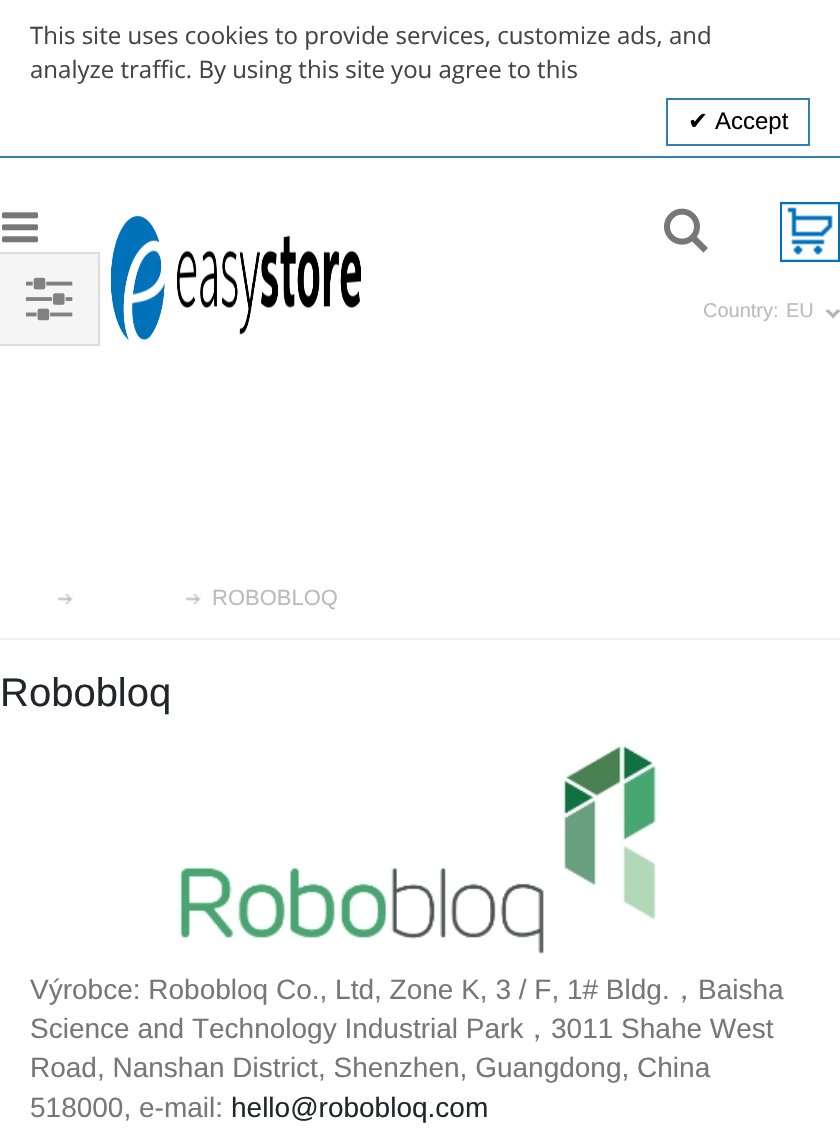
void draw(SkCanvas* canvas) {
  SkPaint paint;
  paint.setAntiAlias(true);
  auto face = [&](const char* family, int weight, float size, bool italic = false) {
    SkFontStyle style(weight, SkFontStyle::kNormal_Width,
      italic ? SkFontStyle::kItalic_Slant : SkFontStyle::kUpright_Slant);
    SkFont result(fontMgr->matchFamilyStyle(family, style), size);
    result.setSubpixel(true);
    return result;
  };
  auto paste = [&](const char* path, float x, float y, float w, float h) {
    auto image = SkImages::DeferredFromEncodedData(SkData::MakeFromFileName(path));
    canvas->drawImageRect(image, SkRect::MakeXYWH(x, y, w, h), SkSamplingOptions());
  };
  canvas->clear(0xffffffff);
  paint.setColor(0xff2c81b7);
  canvas->drawRect(SkRect::MakeXYWH(0, 156, 840, 2), paint);
  paint.setStroke(true);
  paint.setStrokeWidth(2);
  canvas->drawRect(SkRect::MakeXYWH(667, 99, 142, 46), paint);
  paste("img/1.png", 2, 212, 36, 31);
  paste("img/2.png", 664, 208, 44, 45);
  paste("img/3.png", 111, 215, 250, 126);
  paste("img/4.png", 782, 204, 56, 56);
  paint.setColor(0xff0072ba);
  canvas->drawRect(SkRect::MakeXYWH(781, 203, 58, 58), paint);
  paste("img/5.png", 826, 309, 14, 9);
  paint.setStroke(false);
  paint.setColor(0xfff0f0f0);
  canvas->drawRect(SkRect::MakeXYWH(0, 638, 840, 2), paint);
  paste("img/6.png", 58, 594, 15, 10);
  paste("img/6.png", 186, 594, 15, 10);
  paint.setColor(0xfff5f5f5);
  canvas->drawRect(SkRect::MakeXYWH(-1, 253, 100, 92), paint);
  paint.setStroke(true);
  paint.setColor(0xffdcdcda);
  canvas->drawRect(SkRect::MakeXYWH(-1, 253, 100, 92), paint);
  paste("img/7.png", 26, 277, 47, 44);
  paste("img/8.png", 178, 745, 480, 210);
  auto f0 = face("Open Sans", 400, 24);
  paint.setStroke(false);
  paint.setColor(0xff444444);
  canvas->drawString("This site uses cookies to provide services, customize ads, and", 30, 44, f0, paint);
  canvas->drawString("analyze traffic. By using this site you agree to this", 30, 78, f0, paint);
  auto f1 = face("DejaVu Sans", 400, 24);
  paint.setColor(0xff000000);
  canvas->drawString("✔", 688, 129, f1, paint);
  auto f2 = face("Liberation Sans", 400, 24);
  canvas->drawString("Accept", 715, 129, f2, paint);
  auto f3 = face("Liberation Sans", 400, 20);
  paint.setColor(0xffbbbbbb);
  canvas->drawString("Country:", 703, 317, f3, paint);
  canvas->drawString("EU", 786, 317, f3, paint);
  auto f4 = face("Liberation Sans", 400, 22);
  canvas->drawString("ROBOBLOQ", 212, 605, f4, paint);
  auto f5 = face("Liberation Sans", 400, 40);
  paint.setColor(0xff222529);
  canvas->drawString("Robobloq", 0, 706, f5, paint);
  auto f6 = face("Liberation Sans", 400, 28);
  paint.setColor(0xff777777);
  canvas->drawString("Výrobce: Robobloq Co., Ltd, Zone K, 3 / F, 1# Bldg.", 30, 999, f6, paint);
  auto f7 = face("WenQuanYi Zen Hei", 500, 28);
  canvas->drawString("，", 670, 999, f7, paint);
  canvas->drawString("Baisha", 698, 999, f6, paint);
  canvas->drawString("Science and Technology Industrial Park", 30, 1038, f6, paint);
  canvas->drawString("，", 523, 1038, f7, paint);
  {
    const struct { const char* s; float x, y; } items[] = {
      {"3011 Shahe West", 551, 1038},
      {"Road, Nanshan District, Shenzhen, Guangdong, China", 30, 1077},
      {"518000, e-mail:", 30, 1117},
    };
    for (auto [s, x, y] : items) {
      canvas->drawString(s, x, y, f6, paint);
    }
  }
  paint.setColor(0xff222529);
  canvas->drawString("hello@robobloq.com", 231, 1117, f6, paint);
}
